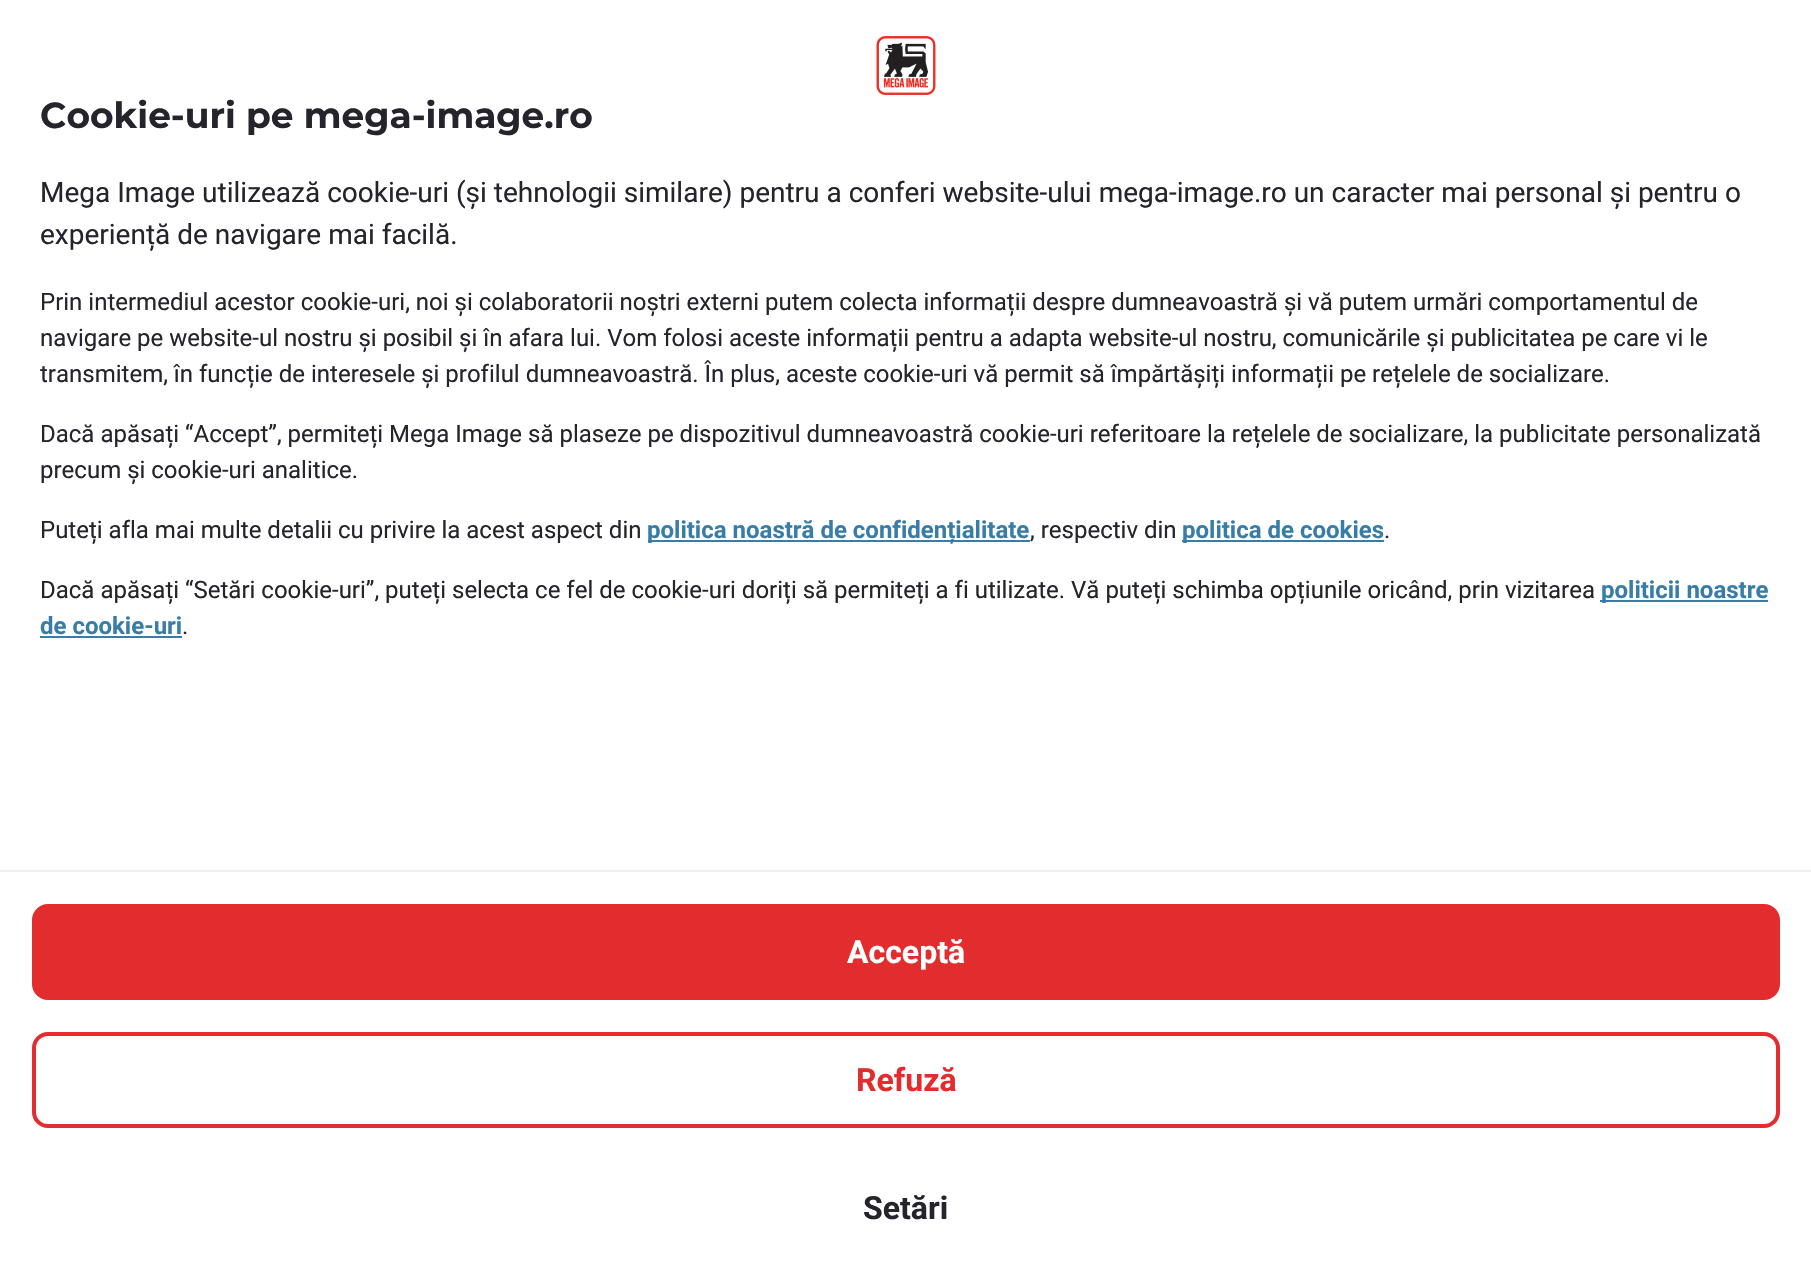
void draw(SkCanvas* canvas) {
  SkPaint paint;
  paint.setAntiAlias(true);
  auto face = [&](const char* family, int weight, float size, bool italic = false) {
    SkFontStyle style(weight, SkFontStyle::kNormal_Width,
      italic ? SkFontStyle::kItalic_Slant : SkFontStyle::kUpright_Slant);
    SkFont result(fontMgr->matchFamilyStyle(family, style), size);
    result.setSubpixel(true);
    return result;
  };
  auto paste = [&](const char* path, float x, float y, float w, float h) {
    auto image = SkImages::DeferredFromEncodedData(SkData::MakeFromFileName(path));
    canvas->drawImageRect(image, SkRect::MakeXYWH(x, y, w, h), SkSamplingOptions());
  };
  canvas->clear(0xffffffff);
  paste("img/1.png", 876, 36, 60, 59);
  {
    const struct { float x, y, w, h; SkColor color; } items[] = {
      {648, 540, 382, 2, 0xff377da8},
      {1182, 540, 202, 2, 0xff377da8},
      {1600, 600, 168, 2, 0xff377da8},
      {40, 636, 142, 2, 0xff377da8},
      {0, 870, 1811, 2, 0xffefefef},
    };
    for (auto [x, y, w, h, color] : items) {
      paint.setColor(color);
      canvas->drawRect(SkRect::MakeXYWH(x, y, w, h), paint);
    }
  }
  paint.setColor(0xffe32c2e);
  canvas->drawRoundRect(SkRect::MakeXYWH(34, 906, 1744, 92), 14, 14, paint);
  paint.setStroke(true);
  paint.setStrokeWidth(4);
  canvas->drawRoundRect(SkRect::MakeXYWH(34, 906, 1744, 92), 14, 14, paint);
  canvas->drawRoundRect(SkRect::MakeXYWH(34, 1034, 1744, 92), 14, 14, paint);
  auto f0 = face("Montserrat", 100, 36);
  paint.setStroke(false);
  paint.setColor(0xff25232c);
  canvas->drawString("Cookie-uri pe mega-image.ro", 40, 128, f0, paint);
  auto f1 = face("Roboto", 400, 28);
  canvas->drawString("Mega Image utilizează cookie-uri (și tehnologii similare) pentru a conferi website-ului mega-image.ro un caracter mai personal și pentru o", 40, 202, f1, paint);
  canvas->drawString("experiență de navigare mai facilă.", 40, 244, f1, paint);
  auto f2 = face("Roboto", 400, 24);
  {
    const struct { const char* s; float x, y; } items[] = {
      {"Prin intermediul acestor cookie-uri, noi și colaboratorii noștri externi putem colecta informații despre dumneavoastră și vă putem urmări comportamentul de", 40, 310},
      {"navigare pe website-ul nostru și posibil și în afara lui. Vom folosi aceste informații pentru a adapta website-ul nostru, comunicările și publicitatea pe care vi le", 40, 346},
      {"transmitem, în funcție de interesele și profilul dumneavoastră. În plus, aceste cookie-uri vă permit să împărtășiți informații pe rețelele de socializare.", 40, 382},
      {"Dacă apăsați “Accept”, permiteți Mega Image să plaseze pe dispozitivul dumneavoastră cookie-uri referitoare la rețelele de socializare, la publicitate personalizată", 40, 442},
      {"precum și cookie-uri analitice.", 40, 478},
      {"Puteți afla mai multe detalii cu privire la acest aspect din", 40, 538},
    };
    for (auto [s, x, y] : items) {
      canvas->drawString(s, x, y, f2, paint);
    }
  }
  auto f3 = face("Roboto", 700, 24);
  paint.setColor(0xff377da8);
  canvas->drawString("politica noastră de confidențialitate", 647, 538, f3, paint);
  paint.setColor(0xff25232c);
  canvas->drawString(", respectiv din", 1030, 538, f2, paint);
  paint.setColor(0xff377da8);
  canvas->drawString("politica de cookies", 1182, 538, f3, paint);
  paint.setColor(0xff25232c);
  canvas->drawString(".", 1384, 538, f2, paint);
  canvas->drawString("Dacă apăsați “Setări cookie-uri”, puteți selecta ce fel de cookie-uri doriți să permiteți a fi utilizate. Vă puteți schimba opțiunile oricând, prin vizitarea", 40, 598, f2, paint);
  paint.setColor(0xff377da8);
  canvas->drawString("politicii noastre", 1601, 598, f3, paint);
  canvas->drawString("de cookie-uri", 40, 634, f3, paint);
  paint.setColor(0xff25232c);
  canvas->drawString(".", 182, 634, f2, paint);
  auto f4 = face("Roboto", 700, 32);
  paint.setColor(0xffffffff);
  canvas->drawString("Acceptă", 847, 963, f4, paint);
  paint.setColor(0xffe32c2e);
  canvas->drawString("Refuză", 856, 1091, f4, paint);
  paint.setColor(0xff25232c);
  canvas->drawString("Setări", 863, 1219, f4, paint);
}
